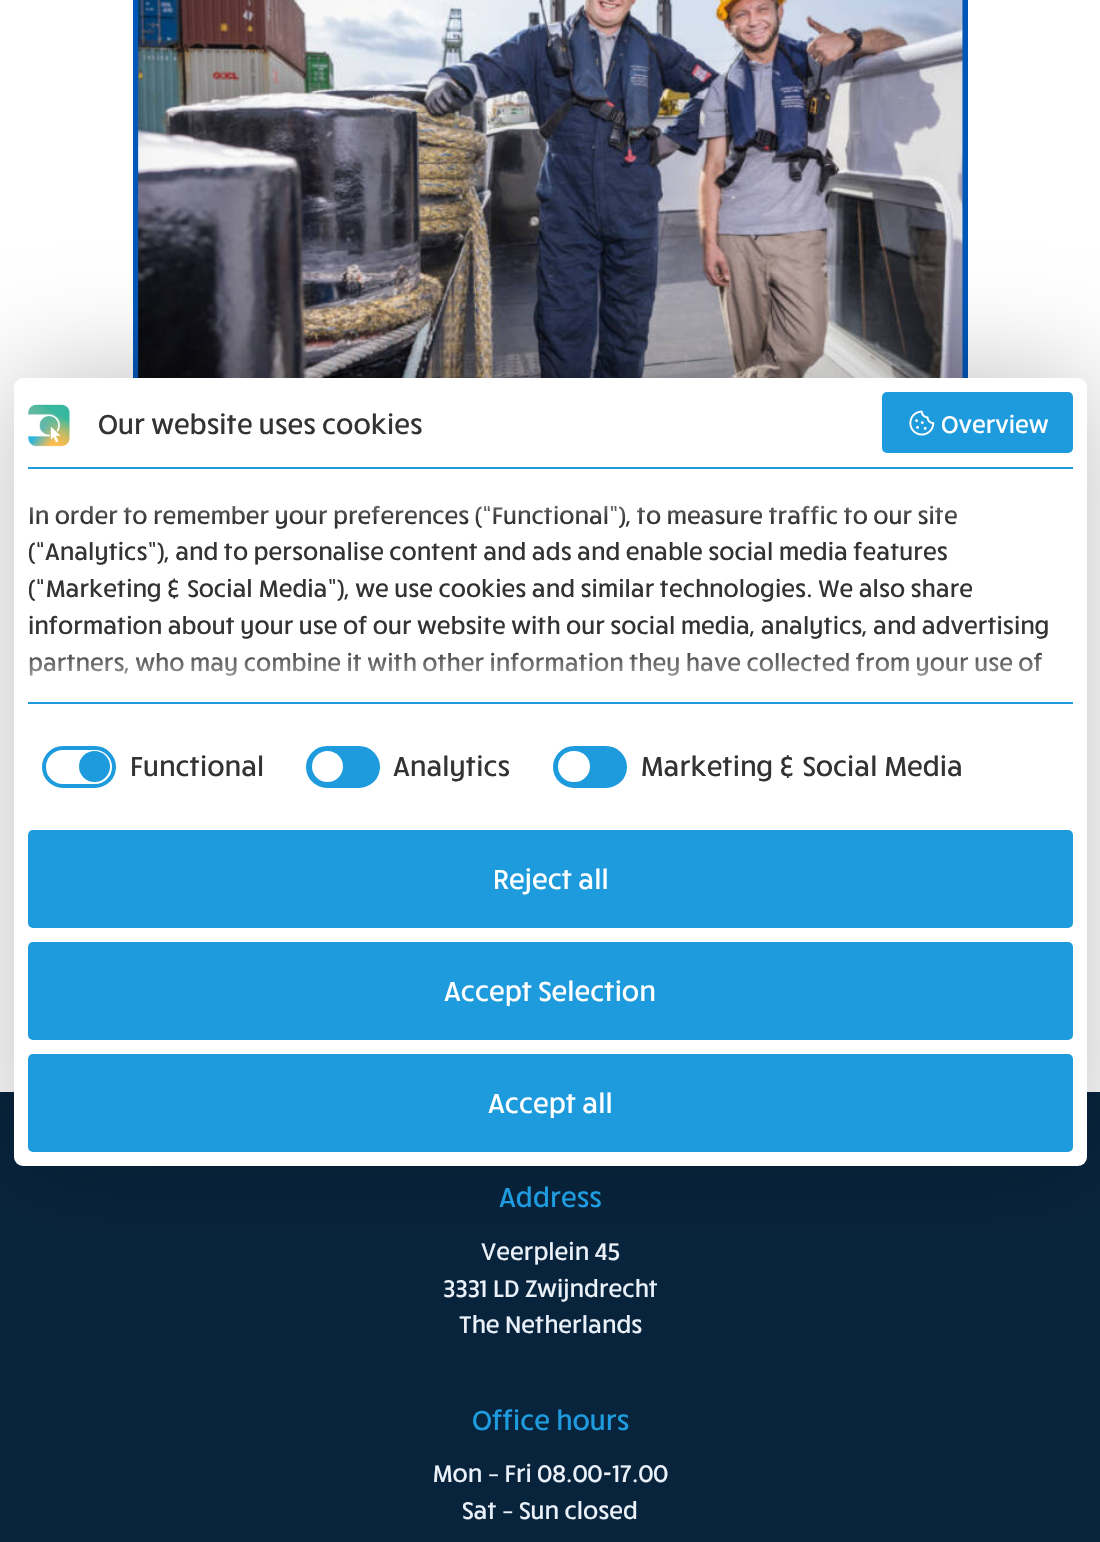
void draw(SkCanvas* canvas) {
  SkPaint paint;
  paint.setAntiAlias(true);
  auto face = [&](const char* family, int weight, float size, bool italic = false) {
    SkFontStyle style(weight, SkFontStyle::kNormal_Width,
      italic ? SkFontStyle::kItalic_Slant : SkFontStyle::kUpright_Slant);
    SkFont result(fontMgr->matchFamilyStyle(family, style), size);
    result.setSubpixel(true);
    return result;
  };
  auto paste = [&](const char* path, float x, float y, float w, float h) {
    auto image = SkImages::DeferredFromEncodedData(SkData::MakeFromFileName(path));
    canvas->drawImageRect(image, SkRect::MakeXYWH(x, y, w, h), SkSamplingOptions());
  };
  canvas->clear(0xffffffff);
  paint.setStroke(true);
  paint.setStrokeWidth(6);
  paint.setColor(0xff0056b7);
  canvas->drawRect(SkRect::MakeXYWH(136, -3, 829, 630), paint);
  paste("img/1.png", 138, 0, 825, 378);
  paint.setStroke(false);
  paint.setColor(0xff08243d);
  canvas->drawRect(SkRect::MakeXYWH(0, 1092, 1100, 450), paint);
  paint.setColor(0x40000000);
  paint.setMaskFilter(SkMaskFilter::MakeBlur(kNormal_SkBlurStyle, 56));
  canvas->drawRoundRect(SkRect::MakeXYWH(14, 378, 1073, 788), 9, 9, paint);
  paint.setMaskFilter(nullptr);
  paint.setColor(0xffffffff);
  canvas->drawRoundRect(SkRect::MakeXYWH(14, 378, 1073, 788), 9, 9, paint);
  paste("img/2.png", 28, 404, 42, 43);
  paint.setColor(0xff1d9bdd);
  canvas->drawRoundRect(SkRect::MakeXYWH(882, 392, 191, 61), 5, 5, paint);
  paste("img/3.png", 909, 410, 26, 26);
  canvas->drawRect(SkRect::MakeXYWH(28, 467, 1045, 2), paint);
  canvas->drawRect(SkRect::MakeXYWH(28, 702, 1045, 2), paint);
  paint.setStroke(true);
  paint.setStrokeWidth(4);
  canvas->drawRoundRect(SkRect::MakeXYWH(44, 748, 70, 38), 19, 19, paint);
  paint.setStroke(false);
  canvas->drawCircle(94.5f, 766.5f, 15.5f, paint);
  canvas->drawRoundRect(SkRect::MakeXYWH(308, 748, 70, 38), 19, 19, paint);
  paint.setStroke(true);
  canvas->drawRoundRect(SkRect::MakeXYWH(308, 748, 70, 38), 19, 19, paint);
  paint.setStroke(false);
  paint.setColor(0xffffffff);
  canvas->drawCircle(327.5f, 766.5f, 15.5f, paint);
  paint.setColor(0xff1d9bdd);
  canvas->drawRoundRect(SkRect::MakeXYWH(555, 748, 70, 38), 19, 19, paint);
  paint.setStroke(true);
  canvas->drawRoundRect(SkRect::MakeXYWH(555, 748, 70, 38), 19, 19, paint);
  paint.setStroke(false);
  paint.setColor(0xffffffff);
  canvas->drawRoundRect(SkRect::MakeXYWH(558, 751, 32, 31), 15.5f, 15.5f, paint);
  paint.setColor(0xff1d9bdd);
  canvas->drawRoundRect(SkRect::MakeXYWH(28, 830, 1045, 98), 5, 5, paint);
  canvas->drawRoundRect(SkRect::MakeXYWH(28, 942, 1045, 98), 5, 5, paint);
  canvas->drawRoundRect(SkRect::MakeXYWH(28, 1054, 1045, 98), 5, 5, paint);
  auto f0 = face("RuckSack", 500, 28);
  paint.setColor(0xff333333);
  canvas->drawString("Our website uses cookies", 98, 434, f0, paint);
  auto f1 = face("RuckSack", 500, 24.5f);
  paint.setColor(0xffffffff);
  canvas->drawString("Overview", 941, 433, f1, paint);
  paint.setColor(0xff333333);
  {
    const struct { const char* s; float x, y; } items[] = {
      {"In order to remember your preferences (“Functional”), to measure traffic to our site", 28, 524},
      {"(“Analytics”), and to personalise content and ads and enable social media features", 28, 560},
      {"(“Marketing & Social Media”), we use cookies and similar technologies. We also share", 28, 597},
      {"information about your use of our website with our social media, analytics, and advertising", 28, 634},
      {"partners, who may combine it with other information they have collected from your use of", 28, 671},
    };
    for (auto [s, x, y] : items) {
      canvas->drawString(s, x, y, f1, paint);
    }
  }
  {
    const SkColor colors[] = {0x00ffffff, 0xffffffff};
    const float stops[] = {0, 1};
    const SkPoint ends[] = {{550, 520}, {550, 467}};
    paint.setShader(SkGradientShader::MakeLinear(ends, colors, stops, 2, SkTileMode::kClamp));
    paint.setAlpha(255);
  }
  canvas->drawRect(SkRect::MakeXYWH(30, 505, 927, 14), paint);
  {
    const SkColor colors[] = {0x00ffffff, 0xffffffff};
    const float stops[] = {0, 1};
    const SkPoint ends[] = {{550, 649}, {550, 702}};
    paint.setShader(SkGradientShader::MakeLinear(ends, colors, stops, 2, SkTileMode::kClamp));
    paint.setAlpha(255);
  }
  canvas->drawRect(SkRect::MakeXYWH(29, 653, 1013, 23), paint);
  paint.setShader(nullptr);
  paint.setColor(0xff333333);
  {
    const struct { const char* s; float x, y; } items[] = {
      {"Functional", 130, 776},
      {"Analytics", 393, 776},
      {"Marketing & Social Media", 640, 776},
    };
    for (auto [s, x, y] : items) {
      canvas->drawString(s, x, y, f0, paint);
    }
  }
  paint.setColor(0xffffffff);
  {
    const struct { const char* s; float x, y; } items[] = {
      {"Reject all", 493, 889},
      {"Accept Selection", 444, 1001},
      {"Accept all", 488, 1113},
    };
    for (auto [s, x, y] : items) {
      canvas->drawString(s, x, y, f0, paint);
    }
  }
  paint.setColor(0xff1e9cdf);
  canvas->drawString("Address", 499, 1207, f0, paint);
  paint.setColor(0xffeaf1f9);
  {
    const struct { const char* s; float x, y; } items[] = {
      {"Veerplein 45", 481, 1260},
      {"3331 LD Zwijndrecht", 443, 1297},
      {"The Netherlands", 459, 1333},
    };
    for (auto [s, x, y] : items) {
      canvas->drawString(s, x, y, f1, paint);
    }
  }
  paint.setColor(0xff1e9cdf);
  canvas->drawString("Office hours", 472, 1430, f0, paint);
  paint.setColor(0xffeaf1f9);
  canvas->drawString("Mon – Fri 08.00-17.00", 432, 1482, f1, paint);
  canvas->drawString("Sat – Sun closed", 462, 1519, f1, paint);
}
